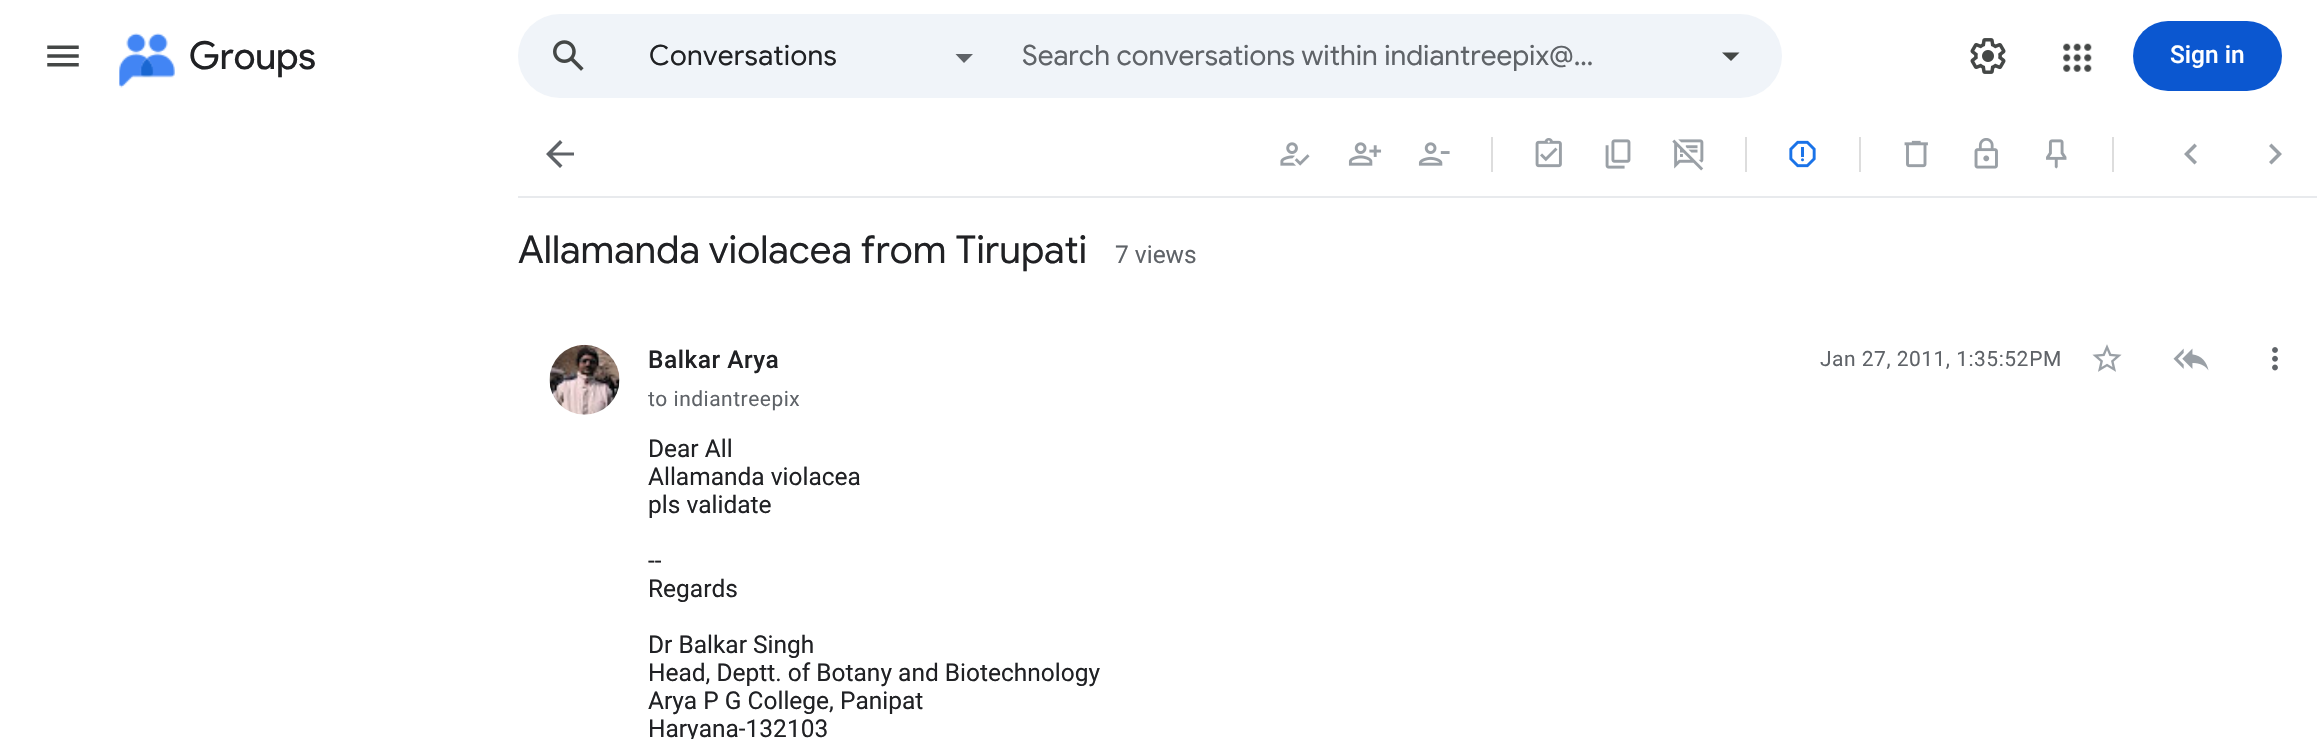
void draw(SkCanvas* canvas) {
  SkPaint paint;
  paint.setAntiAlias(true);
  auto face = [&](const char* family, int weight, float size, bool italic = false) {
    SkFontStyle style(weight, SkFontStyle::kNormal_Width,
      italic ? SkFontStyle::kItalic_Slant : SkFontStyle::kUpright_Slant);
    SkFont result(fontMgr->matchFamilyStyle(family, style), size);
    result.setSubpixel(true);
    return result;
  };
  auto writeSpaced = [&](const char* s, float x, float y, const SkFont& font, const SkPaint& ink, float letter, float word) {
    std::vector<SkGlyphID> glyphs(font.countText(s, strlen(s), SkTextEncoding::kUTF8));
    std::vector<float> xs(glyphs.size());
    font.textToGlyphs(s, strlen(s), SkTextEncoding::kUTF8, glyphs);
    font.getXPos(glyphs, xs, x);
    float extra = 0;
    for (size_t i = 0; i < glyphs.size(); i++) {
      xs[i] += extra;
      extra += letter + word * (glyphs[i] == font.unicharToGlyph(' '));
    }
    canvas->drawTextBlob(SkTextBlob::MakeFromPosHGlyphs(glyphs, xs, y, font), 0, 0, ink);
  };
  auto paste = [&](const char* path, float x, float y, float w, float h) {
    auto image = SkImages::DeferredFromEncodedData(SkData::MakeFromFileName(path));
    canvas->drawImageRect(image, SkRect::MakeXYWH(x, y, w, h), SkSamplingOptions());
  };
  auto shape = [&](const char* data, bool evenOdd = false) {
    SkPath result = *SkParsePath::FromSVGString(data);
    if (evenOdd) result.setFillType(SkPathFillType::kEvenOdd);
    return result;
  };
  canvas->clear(0xffffffff);
  paste("img/1.png", 47, 45, 32, 22);
  paste("img/2.png", 119, 33, 56, 55);
  paint.setColor(0xfff0f4f9);
  canvas->drawRoundRect(SkRect::MakeXYWH(518, 14, 1264, 84), 42, 42, paint);
  paste("img/3.png", 553, 40, 31, 31);
  paint.setColor(0xff5f6368);
  canvas->drawPath(shape("M955.5 54H973L964 63Z"), paint);
  paint.setColor(0xff444746);
  canvas->drawPath(shape("M1722 52.5L1731 61L1739.5 52.5Z"), paint);
  paste("img/4.png", 1970, 38, 36, 36);
  paste("img/5.png", 2063, 43, 29, 29);
  paint.setColor(0xff0b57d0);
  canvas->drawRoundRect(SkRect::MakeXYWH(2133, 21, 149, 70), 35, 35, paint);
  paint.setColor(0xffe8eaed);
  canvas->drawRect(SkRect::MakeXYWH(518, 196, 1799, 2), paint);
  paint.setColor(0xff5f6368);
  canvas->drawPath(shape("M574 152.5V155.5H552.5L562.5 165.5L560 168L546 154L560 140L562.5 142.5L552.5 152.5Z"), paint);
  paste("img/6.png", 1280, 142, 30, 24);
  paste("img/7.png", 1348, 142, 34, 24);
  paste("img/8.png", 1418, 142, 32, 24);
  paint.setColor(0xffdddddd);
  canvas->drawRect(SkRect::MakeXYWH(1491, 137, 2, 35), paint);
  paste("img/9.png", 1535, 138, 27, 30);
  paste("img/10.png", 1605, 139, 26, 30);
  paste("img/11.png", 1672, 139, 32, 32);
  canvas->drawRect(SkRect::MakeXYWH(1745, 137, 2, 35), paint);
  paste("img/12.png", 1789, 140, 27, 28);
  canvas->drawRect(SkRect::MakeXYWH(1859, 137, 2, 35), paint);
  paste("img/13.png", 1904, 140, 24, 28);
  paste("img/14.png", 1974, 138, 24, 31);
  paste("img/15.png", 2046, 139, 21, 30);
  canvas->drawRect(SkRect::MakeXYWH(2112, 137, 2, 35), paint);
  paint.setColor(0xff9aa0a6);
  canvas->drawPath(shape("M2197 146L2189 154L2197 162L2194.5 164.5L2184 154L2194.5 143.5Z"), paint);
  canvas->drawPath(shape("M2271.5 143.5L2282 154L2271.5 164.5L2269 162L2277 154L2269 146Z"), paint);
  paste("img/16.png", 549, 344, 71, 71);
  paste("img/17.png", 2092, 344, 30, 28);
  paste("img/18.png", 2173, 348, 36, 23);
  paste("img/19.png", 2272, 347, 6, 24);
  auto f0 = face("Product Sans", 400, 38.5f);
  paint.setColor(0xff202124);
  canvas->drawString("Groups", 189, 69, f0, paint);
  auto f1 = face("Google Sans", 400, 28);
  writeSpaced("Conversations", 649, 65, f1, paint, 0.3f, 0);
  paint.setColor(0xff5f6368);
  canvas->drawString("Search conversations within indiantreepix@…", 1022, 65, f1, paint);
  auto f2 = face("Roboto", 500, 24.5f);
  paint.setColor(0xffffffff);
  canvas->drawString("Sign in", 2170, 63, f2, paint);
  auto f3 = face("Google Sans", 400, 38.5f);
  paint.setColor(0xff202124);
  canvas->drawString("Allamanda violacea from Tirupati", 518, 263, f3, paint);
  auto f4 = face("Roboto", 400, 24.5f);
  paint.setColor(0xff5f6368);
  canvas->drawString("7 views", 1115, 263, f4, paint);
  paint.setColor(0xff202124);
  writeSpaced("Balkar Arya", 648, 368, f2, paint, 0.5f, 0);
  auto f5 = face("Roboto", 400, 21);
  paint.setColor(0xff5f6368);
  writeSpaced("Jan 27, 2011, 1:35:52 PM", 1820, 366, f5, paint, 0.5f, 0);
  writeSpaced("to indiantreepix", 648, 406, f5, paint, 0.5f, 0);
  paint.setColor(0xff202124);
  {
    const struct { const char* s; float x, y; } items[] = {
      {"Dear All", 648, 457},
      {"Allamanda violacea", 648, 485},
      {"pls validate", 648, 513},
      {"--", 648, 569},
      {"Regards", 648, 597},
      {"Dr Balkar Singh", 648, 653},
      {"Head, Deptt. of Botany and Biotechnology", 648, 681},
      {"Arya P G College, Panipat", 648, 709},
      {"Haryana-132103", 648, 737},
    };
    for (auto [s, x, y] : items) {
      canvas->drawString(s, x, y, f4, paint);
    }
  }
}
